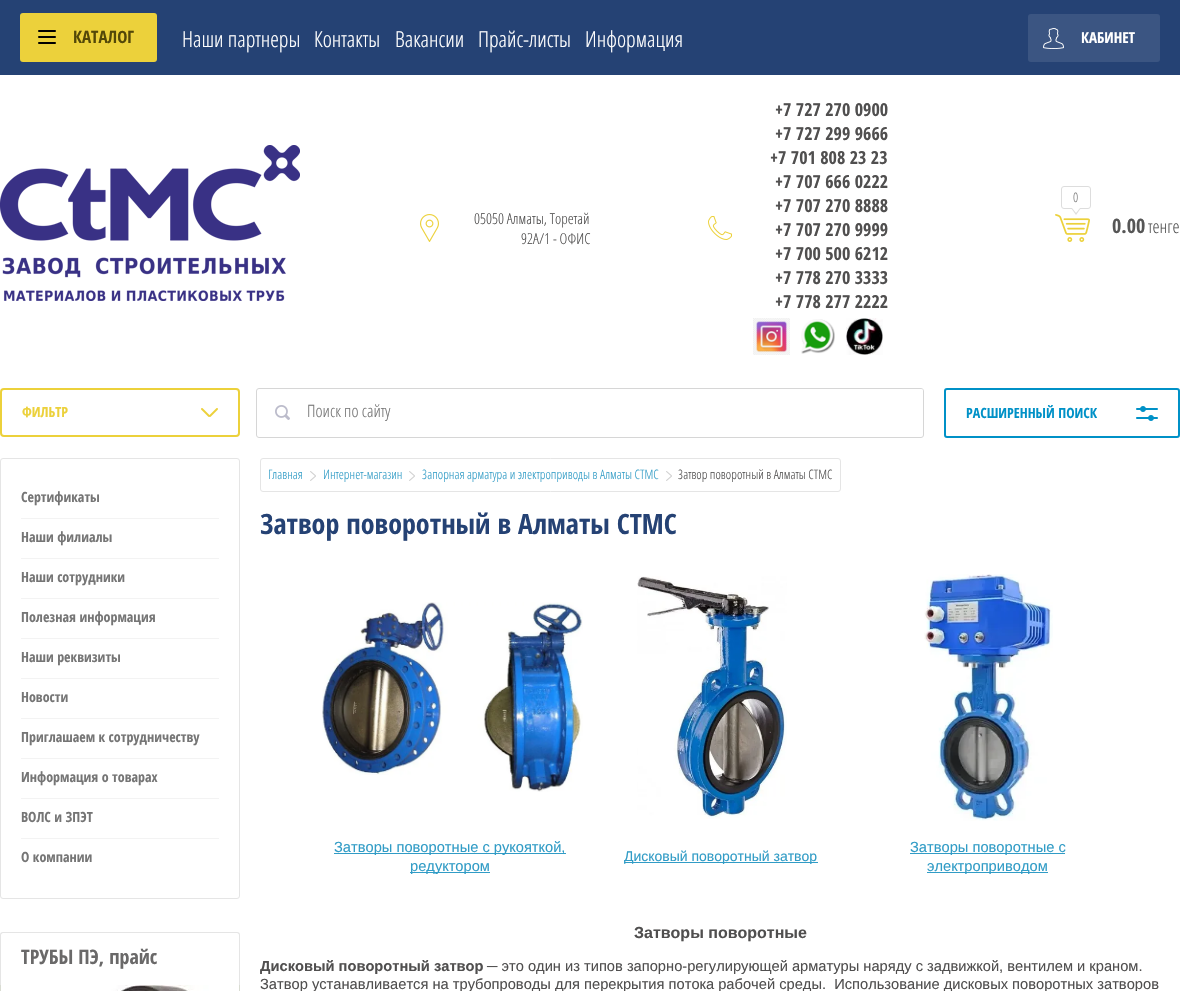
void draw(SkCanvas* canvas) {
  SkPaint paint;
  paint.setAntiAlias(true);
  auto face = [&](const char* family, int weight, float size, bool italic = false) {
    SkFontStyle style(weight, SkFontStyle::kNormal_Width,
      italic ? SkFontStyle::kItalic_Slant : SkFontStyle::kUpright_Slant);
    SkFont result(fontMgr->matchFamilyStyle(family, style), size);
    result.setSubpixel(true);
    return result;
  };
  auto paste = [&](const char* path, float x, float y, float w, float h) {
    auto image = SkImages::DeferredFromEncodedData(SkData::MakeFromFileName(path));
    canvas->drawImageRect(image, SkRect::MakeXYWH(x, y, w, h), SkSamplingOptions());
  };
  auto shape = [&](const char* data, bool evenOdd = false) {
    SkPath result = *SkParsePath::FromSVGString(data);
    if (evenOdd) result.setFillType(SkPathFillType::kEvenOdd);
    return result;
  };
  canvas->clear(0xffffffff);
  paint.setColor(0xff254274);
  canvas->drawRect(SkRect::MakeXYWH(0, 0, 1180, 75), paint);
  paint.setColor(0xffecd13b);
  canvas->drawRoundRect(SkRect::MakeXYWH(20, 13, 137, 49), 3, 3, paint);
  paste("img/1.png", 38, 30, 18, 14);
  paint.setColor(0xff3b5582);
  canvas->drawRoundRect(SkRect::MakeXYWH(1028, 14, 132, 48), 3, 3, paint);
  paste("img/2.png", 1043, 28, 21, 21);
  paste("img/3.png", 0, 145, 300, 156);
  paste("img/4.png", 420, 214, 19, 28);
  paste("img/5.png", 708, 216, 24, 24);
  paste("img/6.png", 753, 318, 37, 37);
  paste("img/7.png", 801, 319, 34, 35);
  paste("img/8.png", 846, 318, 37, 37);
  paste("img/9.png", 1055, 214, 35, 28);
  paint.setStroke(true);
  paint.setStrokeWidth(1);
  paint.setColor(0xffdddddd);
  canvas->drawRoundRect(SkRect::MakeXYWH(1061.5f, 186.5f, 29, 22), 2.5f, 2.5f, paint);
  paint.setStroke(false);
  canvas->drawPath(shape("M1071 208H1081L1076 215Z"), paint);
  paint.setColor(0xffffffff);
  canvas->drawPath(shape("M1072 208H1080L1076 213Z"), paint);
  paint.setStroke(true);
  paint.setStrokeWidth(2);
  paint.setColor(0xffecd13b);
  canvas->drawRoundRect(SkRect::MakeXYWH(1, 389, 238, 47), 3, 3, paint);
  paste("img/10.png", 201, 408, 17, 9);
  paint.setStrokeWidth(1);
  paint.setColor(0xffd6d6d6);
  canvas->drawRoundRect(SkRect::MakeXYWH(256.5f, 388.5f, 667, 49), 2.5f, 2.5f, paint);
  paste("img/11.png", 275, 405, 15, 15);
  paint.setStroke(false);
  paint.setColor(0xffffffff);
  canvas->drawRoundRect(SkRect::MakeXYWH(307, 389, 616, 43), 2, 2, paint);
  paint.setStroke(true);
  paint.setStrokeWidth(2);
  paint.setColor(0xff0091c7);
  canvas->drawRoundRect(SkRect::MakeXYWH(945, 389, 234, 48), 2, 2, paint);
  paste("img/12.png", 1136, 406, 22, 15);
  paint.setStrokeWidth(1);
  paint.setColor(0xffe5e5e5);
  canvas->drawRoundRect(SkRect::MakeXYWH(0.5f, 458.5f, 239, 440), 2.5f, 2.5f, paint);
  paint.setStroke(false);
  {
    const struct { float x, y, w, h; SkColor color; } items[] = {
      {21, 518, 198, 1, 0xfff3f3f3},
      {21, 558, 198, 1, 0xfff3f3f3},
      {21, 598, 198, 1, 0xfff3f3f3},
      {21, 638, 198, 1, 0xfff3f3f3},
      {21, 678, 198, 1, 0xfff3f3f3},
      {21, 718, 198, 1, 0xfff3f3f3},
      {21, 758, 198, 1, 0xfff3f3f3},
      {21, 798, 198, 1, 0xfff3f3f3},
      {21, 838, 198, 1, 0xfff3f3f3},
    };
    for (auto [x, y, w, h, color] : items) {
      paint.setColor(color);
      canvas->drawRect(SkRect::MakeXYWH(x, y, w, h), paint);
    }
  }
  paint.setColor(0xffe5e5e5);
  canvas->drawPath(shape("M3 932H237C239 932 240 933 240 935V985H0V935C0 933 1 932 3 932ZM3 933H237C238 933 239 934 239 935V985H1V935C1 934 2 933 3 933Z", true), paint);
  paint.setColor(0xffd9dcd2);
  canvas->drawRect(SkRect::MakeXYWH(0, 985, 240, 6), paint);
  paste("img/13.png", 1, 985, 238, 6);
  paint.setStroke(true);
  paint.setColor(0xffe5e5e5);
  canvas->drawRoundRect(SkRect::MakeXYWH(260.5f, 458.5f, 580, 33), 2.5f, 2.5f, paint);
  paste("img/14.png", 310, 471, 6, 10);
  paste("img/14.png", 409, 471, 6, 10);
  paste("img/14.png", 666, 471, 6, 10);
  paste("img/15.png", 322, 602, 261, 190);
  paste("img/16.png", 637, 576, 150, 243);
  paste("img/17.png", 924, 574, 129, 247);
  paint.setStroke(false);
  {
    const struct { float x, y, w, h; SkColor color; } items[] = {
      {334, 853, 232, 1, 0xff319cc6},
      {410, 872, 80, 1, 0xff319cc6},
      {624, 862, 194, 1, 0xff319cc6},
      {910, 853, 155, 1, 0xff319cc6},
      {927, 872, 121, 1, 0xff319cc6},
    };
    for (auto [x, y, w, h, color] : items) {
      paint.setColor(color);
      canvas->drawRect(SkRect::MakeXYWH(x, y, w, h), paint);
    }
  }
  auto f0 = face("Open Sans Condensed", 700, 17);
  paint.setColor(0xff534808);
  canvas->drawString("КАТАЛОГ", 73, 43, f0, paint);
  auto f1 = face("Open Sans", 300, 22);
  paint.setColor(0xffffffff);
  {
    const struct { const char* s; float x, y; } items[] = {
      {"Наши партнеры", 182, 47},
      {"Контакты", 314, 47},
      {"Вакансии", 395, 47},
      {"Прайс-листы", 478, 47},
      {"Информация", 585, 47},
    };
    for (auto [s, x, y] : items) {
      canvas->drawString(s, x, y, f1, paint);
    }
  }
  auto f2 = face("Open Sans Condensed", 700, 15);
  canvas->drawString("КАБИНЕТ", 1081, 43, f2, paint);
  auto f3 = face("Open Sans", 300, 15);
  paint.setColor(0xff504f4f);
  canvas->drawString("05050 Алматы, Торетай", 474, 224, f3, paint);
  canvas->drawString("92А/1 - ОФИС", 521, 244, f3, paint);
  auto f4 = face("Open Sans Condensed", 700, 18);
  {
    const struct { const char* s; float x, y; } items[] = {
      {"+7 727 270 0900", 775, 116},
      {"+7 727 299 9666", 775, 140},
      {"+7 701 808 23 23", 770, 164},
      {"+7 707 666 0222", 775, 188},
      {"+7 707 270 8888", 775, 212},
      {"+7 707 270 9999", 775, 236},
      {"+7 700 500 6212", 775, 260},
      {"+7 778 270 3333", 775, 284},
      {"+7 778 277 2222", 775, 308},
    };
    for (auto [s, x, y] : items) {
      canvas->drawString(s, x, y, f4, paint);
    }
  }
  auto f5 = face("Open Sans", 300, 13);
  paint.setColor(0xff7e7e7e);
  canvas->drawString("0", 1073, 202, f5, paint);
  auto f6 = face("Open Sans Condensed", 700, 20);
  paint.setColor(0xff565656);
  canvas->drawString("0.00", 1112, 233, f6, paint);
  auto f7 = face("Open Sans", 300, 18);
  canvas->drawString("тенге", 1148, 233, f7, paint);
  auto f8 = face("Open Sans Condensed", 700, 14);
  paint.setColor(0xffecd13b);
  canvas->drawString("ФИЛЬТР", 22, 417, f8, paint);
  auto f9 = face("Open Sans", 300, 17);
  paint.setColor(0xff757575);
  canvas->drawString("Поиск по сайту", 307, 417, f9, paint);
  paint.setColor(0xff0091c7);
  canvas->drawString("РАСШИРЕННЫЙ ПОИСК", 966, 418, f8, paint);
  paint.setColor(0xff757575);
  {
    const struct { const char* s; float x, y; } items[] = {
      {"Сертификаты", 21, 502},
      {"Наши филиалы", 21, 542},
      {"Наши сотрудники", 21, 582},
      {"Полезная информация", 21, 622},
      {"Наши реквизиты", 21, 662},
      {"Новости", 21, 702},
      {"Приглашаем к сотрудничеству", 21, 742},
      {"Информация о товарах", 21, 782},
      {"ВОЛС и ЗПЭТ", 21, 822},
      {"О компании", 21, 862},
    };
    for (auto [s, x, y] : items) {
      canvas->drawString(s, x, y, f8, paint);
    }
  }
  paint.setColor(0xff6a6969);
  canvas->drawString("ТРУБЫ ПЭ, прайс", 21, 964, f6, paint);
  paint.setColor(0xff319cc6);
  {
    const struct { const char* s; float x, y; } items[] = {
      {"Главная", 268, 479},
      {"Интернет-магазин", 323, 479},
      {"Запорная арматура и электроприводы в Алматы СТМС", 422, 479},
    };
    for (auto [s, x, y] : items) {
      canvas->drawString(s, x, y, f5, paint);
    }
  }
  paint.setColor(0xff504f4f);
  canvas->drawString("Затвор поворотный в Алматы СТМС", 678, 479, f5, paint);
  auto f10 = face("Open Sans Condensed", 700, 28);
  paint.setColor(0xff254274);
  canvas->drawString("Затвор поворотный в Алматы СТМС", 260, 534, f10, paint);
  auto f11 = face("Liberation Sans", 400, 14.67f);
  paint.setColor(0xff319cc6);
  canvas->drawString("Затворы поворотные с рукояткой,", 334, 852, f11, paint);
  canvas->drawString("редуктором", 410, 871, f11, paint);
  auto f12 = face("Liberation Sans", 400, 14);
  canvas->drawString("Дисковый поворотный затвор", 624, 861, f12, paint);
  canvas->drawString("Затворы поворотные с", 910, 852, f11, paint);
  canvas->drawString("электроприводом", 927, 871, f11, paint);
  auto f13 = face("Liberation Sans", 700, 16);
  paint.setColor(0xff504f4f);
  canvas->drawString("Затворы поворотные", 634, 938, f13, paint);
  auto f14 = face("Liberation Sans", 700, 14.67f);
  canvas->drawString("Дисковый поворотный затвор", 260, 971, f14, paint);
  canvas->drawString("─ это один из типов запорно-регулирующей арматуры наряду с задвижкой, вентилем и краном.", 487, 971, f11, paint);
  canvas->drawString("Затвор устанавливается на трубопроводы для перекрытия потока рабочей среды.  Использование дисковых поворотных затворов", 260, 989, f11, paint);
}
